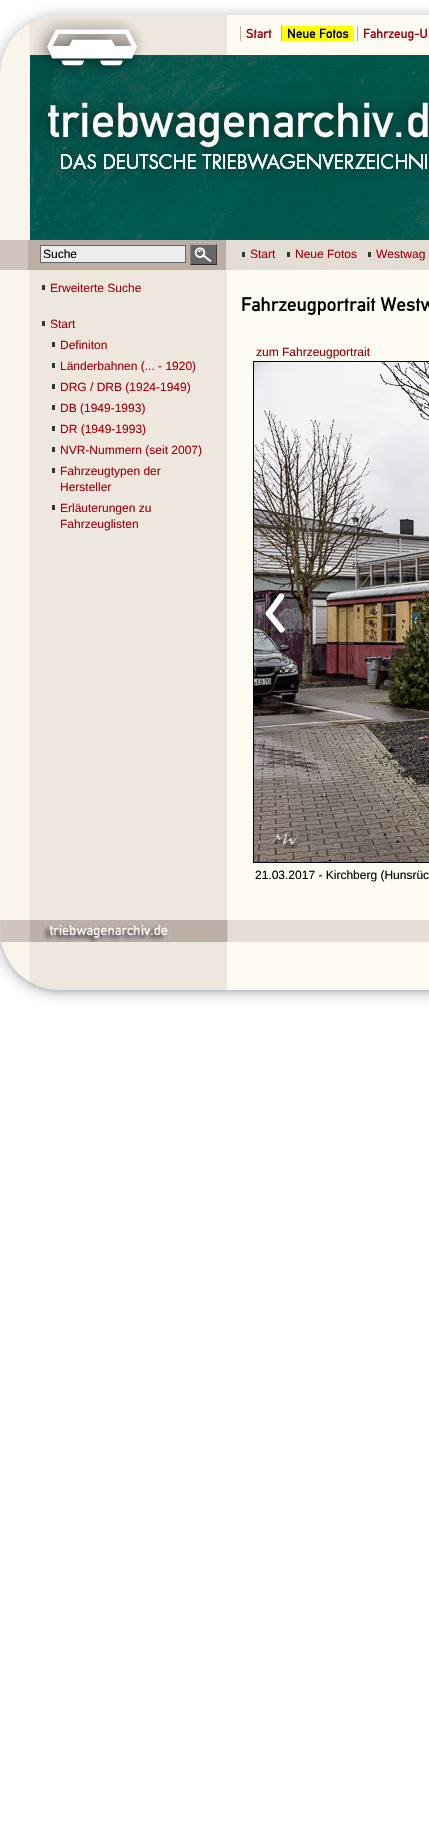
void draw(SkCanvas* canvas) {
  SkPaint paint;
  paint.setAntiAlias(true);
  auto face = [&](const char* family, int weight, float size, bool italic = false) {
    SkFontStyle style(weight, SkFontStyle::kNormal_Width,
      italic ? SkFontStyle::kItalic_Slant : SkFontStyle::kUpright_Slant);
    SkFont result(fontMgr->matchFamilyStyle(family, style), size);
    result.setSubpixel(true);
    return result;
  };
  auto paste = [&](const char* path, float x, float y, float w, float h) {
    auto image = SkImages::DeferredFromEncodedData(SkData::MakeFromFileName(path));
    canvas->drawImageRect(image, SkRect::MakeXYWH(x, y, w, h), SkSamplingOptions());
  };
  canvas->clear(0xffffffff);
  paint.setColor(0x520e1e25);
  paint.setMaskFilter(SkMaskFilter::MakeBlur(kNormal_SkBlurStyle, 8));
  canvas->drawRoundRect(SkRect::MakeXYWH(0, 17, 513, 975), 60, 60, paint);
  paint.setMaskFilter(nullptr);
  paint.setColor(0x1f0e1e25);
  paint.setMaskFilter(SkMaskFilter::MakeBlur(kNormal_SkBlurStyle, 2));
  canvas->drawRoundRect(SkRect::MakeXYWH(0, 17, 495, 975), 60, 60, paint);
  paint.setMaskFilter(nullptr);
  paste("img/1.png", 0, 15, 429, 975);
  paste("img/2.png", 30, 18, 399, 222);
  {
    const struct { float x, y, w, h; SkColor color; } items[] = {
      {240, 26, 1, 15, 0xffc1ada4},
      {282, 26, 72, 15, 0xffffff00},
      {281, 26, 1, 15, 0xffc1ada4},
      {357, 26, 1, 15, 0xffc1ada4},
    };
    for (auto [x, y, w, h, color] : items) {
      paint.setColor(color);
      canvas->drawRect(SkRect::MakeXYWH(x, y, w, h), paint);
    }
  }
  paste("img/3.png", 0, 240, 429, 30);
  paint.setColor(0xffeeeeee);
  canvas->drawRect(SkRect::MakeXYWH(40.5f, 245.5f, 145, 17), paint);
  paint.setStroke(true);
  paint.setStrokeWidth(1);
  paint.setColor(0xff666666);
  canvas->drawRect(SkRect::MakeXYWH(40.5f, 245.5f, 145, 17), paint);
  paste("img/4.png", 190, 244, 27, 21);
  paint.setStroke(false);
  {
    const struct { float x, y, w, h; SkColor color; } items[] = {
      {242, 252, 3, 5, 0xff333434},
      {287, 252, 3, 5, 0xff333434},
      {368, 252, 3, 5, 0xff333434},
      {42, 285, 3, 5, 0xff333434},
      {42, 321, 3, 5, 0xff333434},
      {52, 342, 3, 5, 0xff333434},
      {52, 363, 3, 5, 0xff333434},
      {52, 384, 3, 5, 0xff333434},
      {52, 405, 3, 5, 0xff333434},
      {52, 426, 3, 5, 0xff333434},
      {52, 447, 3, 5, 0xff333434},
      {52, 468, 3, 5, 0xff333434},
      {52, 505, 3, 5, 0xff333434},
    };
    for (auto [x, y, w, h, color] : items) {
      paint.setColor(color);
      canvas->drawRect(SkRect::MakeXYWH(x, y, w, h), paint);
    }
  }
  paint.setStroke(true);
  paint.setColor(0xff000000);
  canvas->drawRect(SkRect::MakeXYWH(253.5f, 361.5f, 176, 501), paint);
  paste("img/5.png", 254, 362, 175, 500);
  paste("img/6.png", 263, 593, 24, 40);
  paste("img/7.png", 0, 920, 429, 22);
  auto f0 = face("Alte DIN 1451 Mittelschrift", 400, 13);
  paint.setStroke(false);
  paint.setColor(0xffa7000e);
  canvas->drawString("Start", 246, 38, f0, paint);
  paint.setColor(0xff000000);
  canvas->drawString("Neue Fotos", 287, 38, f0, paint);
  paint.setColor(0xffa7000e);
  canvas->drawString("Fahrzeug-U", 363, 38, f0, paint);
  auto f1 = face("Liberation Sans", 400, 12);
  paint.setColor(0xff000000);
  canvas->drawString("Suche", 43, 258, f1, paint);
  paint.setColor(0xffa7000e);
  {
    const struct { const char* s; float x, y; } items[] = {
      {"Start", 250, 258},
      {"Neue Fotos", 295, 258},
      {"Westwag", 376, 258},
      {"Erweiterte Suche", 50, 292},
      {"Start", 50, 328},
      {"Definiton", 60, 349},
      {"Länderbahnen (... - 1920)", 60, 370},
      {"DRG / DRB (1924-1949)", 60, 391},
      {"DB (1949-1993)", 60, 412},
      {"DR (1949-1993)", 60, 433},
      {"NVR-Nummern (seit 2007)", 60, 454},
      {"Fahrzeugtypen der", 60, 475},
      {"Hersteller", 60, 491},
      {"Erläuterungen zu", 60, 512},
      {"Fahrzeuglisten", 60, 528},
    };
    for (auto [s, x, y] : items) {
      canvas->drawString(s, x, y, f1, paint);
    }
  }
  auto f2 = face("Alte DIN 1451 Mittelschrift", 400, 19.25f);
  paint.setColor(0xff000000);
  canvas->drawString("Fahrzeugportrait Westw", 241, 311, f2, paint);
  paint.setColor(0xff990000);
  canvas->drawString("zum Fahrzeugportrait", 256, 356, f1, paint);
  paint.setColor(0xff000000);
  canvas->drawString("21.03.2017 - Kirchberg (Hunsrüc", 255, 879, f1, paint);
}
